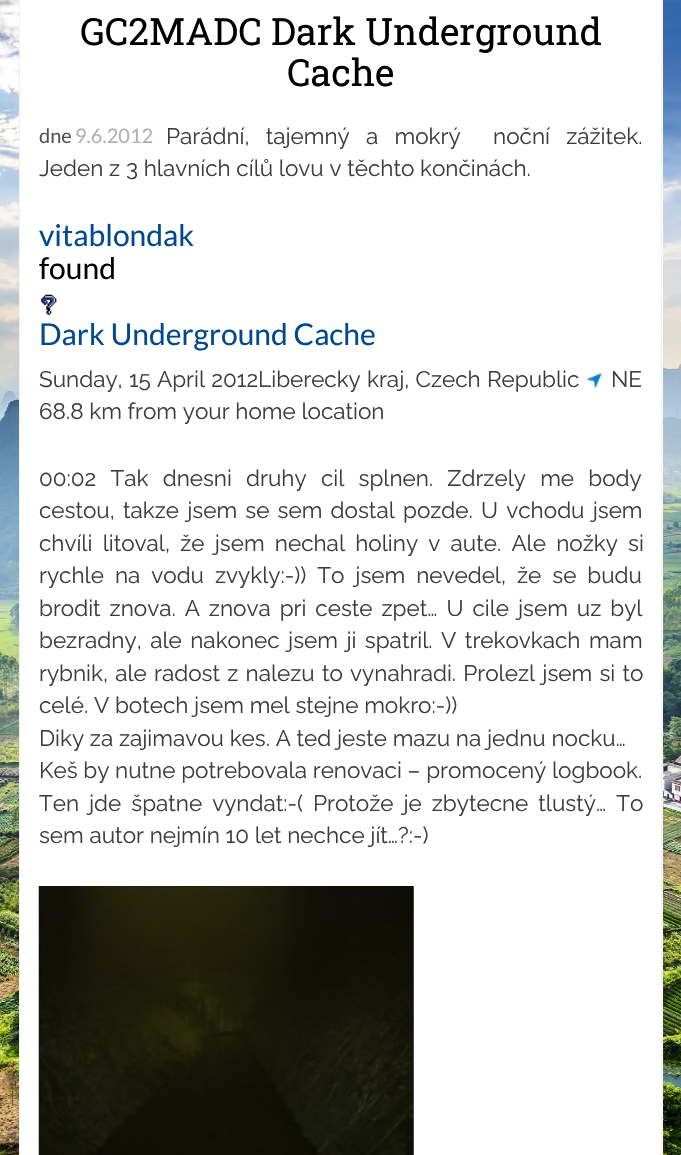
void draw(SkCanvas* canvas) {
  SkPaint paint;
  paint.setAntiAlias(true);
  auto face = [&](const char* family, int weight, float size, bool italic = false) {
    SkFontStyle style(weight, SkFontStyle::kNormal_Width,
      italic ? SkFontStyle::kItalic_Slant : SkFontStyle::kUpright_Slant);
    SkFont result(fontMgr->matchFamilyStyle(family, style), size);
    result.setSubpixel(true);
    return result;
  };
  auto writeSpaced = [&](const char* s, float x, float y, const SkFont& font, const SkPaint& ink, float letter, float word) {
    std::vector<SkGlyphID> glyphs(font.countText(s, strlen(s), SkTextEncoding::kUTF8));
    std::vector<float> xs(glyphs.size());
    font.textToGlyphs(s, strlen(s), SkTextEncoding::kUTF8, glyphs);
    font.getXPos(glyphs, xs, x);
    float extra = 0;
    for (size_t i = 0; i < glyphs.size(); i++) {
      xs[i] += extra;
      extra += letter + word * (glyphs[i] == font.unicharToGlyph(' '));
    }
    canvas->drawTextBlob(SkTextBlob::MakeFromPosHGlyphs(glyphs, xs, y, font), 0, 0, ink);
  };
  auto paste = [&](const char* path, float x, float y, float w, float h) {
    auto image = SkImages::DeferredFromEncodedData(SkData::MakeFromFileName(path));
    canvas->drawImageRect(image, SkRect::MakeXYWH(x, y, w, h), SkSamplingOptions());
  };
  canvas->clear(0xffffffff);
  paste("img/1.png", 0, 0, 681, 1155);
  {
    const struct { float x, y, w, h; SkColor color; } items[] = {
      {20, 0, 643, 1155, 0xffffffff},
      {661, 0, 1, 1155, 0xfff0f0f0},
      {19, 0, 1, 1155, 0xfff0f0f0},
    };
    for (auto [x, y, w, h, color] : items) {
      paint.setColor(color);
      canvas->drawRect(SkRect::MakeXYWH(x, y, w, h), paint);
    }
  }
  paste("img/2.png", 41, 294, 16, 21);
  paste("img/3.png", 587, 373, 15, 15);
  paste("img/4.png", 38, 886, 376, 269);
  auto f0 = face("Roboto Slab", 400, 37.5f);
  paint.setColor(0xff000000);
  canvas->drawString("GC2MADC Dark Underground", 80, 45, f0, paint);
  canvas->drawString("Cache", 287, 86, f0, paint);
  auto f1 = face("Raleway", 400, 22.5f);
  paint.setColor(0xff3e3b3b);
  writeSpaced("Parádní, tajemný a mokrý  noční zážitek.", 166, 144, f1, paint, 0, 10.5f);
  canvas->drawString("Jeden z 3 hlavních cílů lovu v těchto končinách.", 39, 176, f1, paint);
  auto f2 = face("Lato", 400, 30);
  paint.setColor(0xff00488f);
  canvas->drawString("vitablondak", 39, 246, f2, paint);
  paint.setColor(0xff000000);
  canvas->drawString("found", 39, 279, f2, paint);
  paint.setColor(0xff00488f);
  canvas->drawString("Dark Underground Cache", 39, 345, f2, paint);
  paint.setColor(0xff3e3b3b);
  writeSpaced("Sunday, 15 April 2012Liberecky kraj, Czech Republic", 39, 387, f1, paint, 0, 0.5f);
  canvas->drawString("NE", 611, 387, f1, paint);
  canvas->drawString("68.8 km from your home location", 39, 419, f1, paint);
  writeSpaced("00:02 Tak dnesni druhy cil splnen. Zdrzely me body", 39, 486, f1, paint, 0, 8.5f);
  writeSpaced("cestou, takze jsem se sem dostal pozde. U vchodu jsem", 39, 518, f1, paint, 0, 2.5f);
  writeSpaced("chvíli litoval, že jsem nechal holiny v aute. Ale nožky si", 39, 551, f1, paint, 0, 4.5f);
  writeSpaced("rychle na vodu zvykly:-)) To jsem nevedel, že se budu", 39, 583, f1, paint, 0, 5.25f);
  writeSpaced("brodit znova. A znova pri ceste zpet… U cile jsem uz byl", 39, 616, f1, paint, 0, 3.25f);
  writeSpaced("bezradny, ale nakonec jsem ji spatril. V trekovkach mam", 39, 648, f1, paint, 0, 2.75f);
  writeSpaced("rybnik, ale radost z nalezu to vynahradi. Prolezl jsem si to", 39, 681, f1, paint, 0, 1.5f);
  {
    const struct { const char* s; float x, y; } items[] = {
      {"celé. V botech jsem mel stejne mokro:-))", 39, 713},
      {"Diky za zajimavou kes. A ted jeste mazu na jednu nocku…", 39, 746},
      {"Keš by nutne potrebovala renovaci – promocený logbook.", 39, 778},
    };
    for (auto [s, x, y] : items) {
      canvas->drawString(s, x, y, f1, paint);
    }
  }
  writeSpaced("Ten jde špatne vyndat:-( Protože je zbytecne tlustý… To", 39, 811, f1, paint, 0, 4.25f);
  canvas->drawString("sem autor nejmín 10 let nechce jít…?:-)", 39, 843, f1, paint);
  auto f3 = face("Lato", 400, 20);
  paint.setColor(0xff525252);
  canvas->drawString("dne", 39, 143, f3, paint);
  paint.setColor(0xffb0b0b0);
  canvas->drawString("9.6.2012", 75, 143, f3, paint);
}
